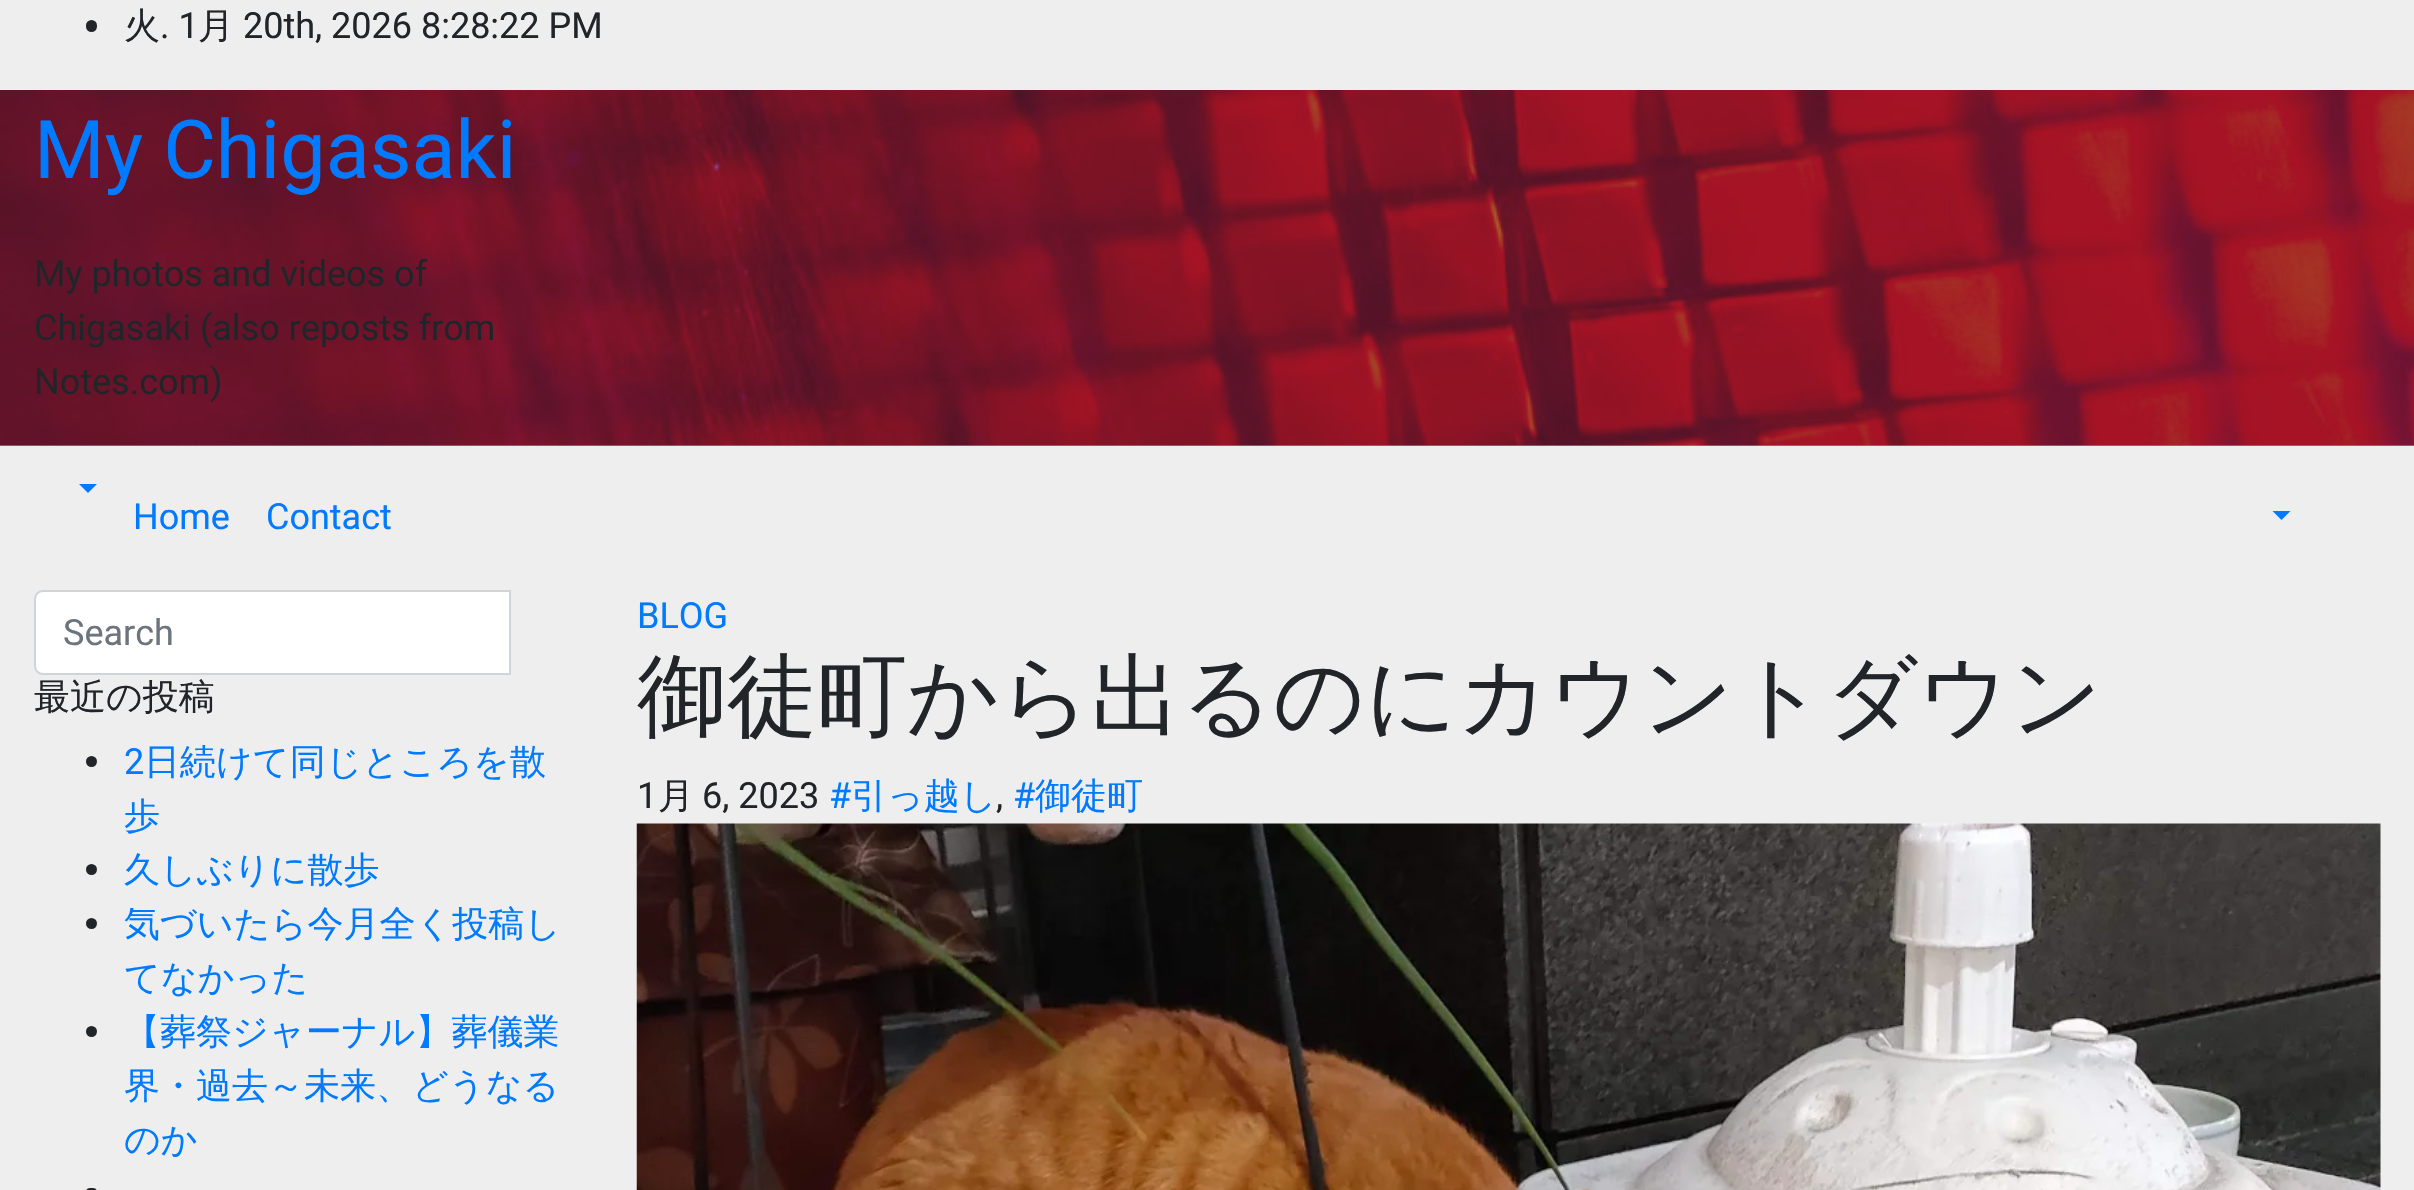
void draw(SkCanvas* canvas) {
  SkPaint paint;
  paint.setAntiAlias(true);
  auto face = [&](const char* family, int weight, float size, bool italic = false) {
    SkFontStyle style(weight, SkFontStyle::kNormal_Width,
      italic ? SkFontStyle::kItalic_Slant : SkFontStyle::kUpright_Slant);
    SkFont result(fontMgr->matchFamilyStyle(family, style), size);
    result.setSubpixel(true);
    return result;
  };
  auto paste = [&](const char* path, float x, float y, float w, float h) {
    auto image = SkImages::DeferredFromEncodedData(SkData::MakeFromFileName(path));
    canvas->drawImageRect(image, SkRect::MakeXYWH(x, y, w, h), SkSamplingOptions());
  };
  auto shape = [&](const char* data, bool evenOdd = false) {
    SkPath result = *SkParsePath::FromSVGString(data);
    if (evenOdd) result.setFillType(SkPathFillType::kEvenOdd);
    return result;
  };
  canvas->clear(0xffeeeeee);
  paint.setColor(0xff9ca2b3);
  canvas->drawRect(SkRect::MakeXYWH(0, 445, 2414, 1), paint);
  paint.setColor(0xff212529);
  canvas->drawRoundRect(SkRect::MakeXYWH(86, 20, 11, 12), 5.5f, 5.5f, paint);
  paste("img/1.png", 0, 90, 2414, 356);
  paint.setColor(0xff007bff);
  canvas->drawPath(shape("M79 484H97L88 493Z"), paint);
  canvas->drawPath(shape("M2272.5 511H2290.5L2281.5 520Z"), paint);
  paint.setColor(0xffffffff);
  canvas->drawPath(shape("M43 591H510V674H43C38.5 674 35 670.5 35 666V599C35 594.5 38.5 591 43 591Z"), paint);
  paint.setStroke(true);
  paint.setStrokeWidth(2);
  paint.setColor(0xffced4da);
  canvas->drawPath(shape("M43 591H510V674H43C38.5 674 35 670.5 35 666V599C35 594.5 38.5 591 43 591Z"), paint);
  paint.setStroke(false);
  paint.setColor(0xff212529);
  canvas->drawCircle(91.5f, 761.5f, 5.5f, paint);
  canvas->drawCircle(91.5f, 869.5f, 5.5f, paint);
  canvas->drawCircle(91.5f, 923.5f, 5.5f, paint);
  canvas->drawCircle(91.5f, 1031.5f, 5.5f, paint);
  canvas->drawRoundRect(SkRect::MakeXYWH(86, 1188, 11, 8), 5.5f, 5.5f, paint);
  paste("img/2.png", 636, 823, 1745, 367);
  auto f0 = face("WenQuanYi Zen Hei", 500, 36);
  canvas->drawString("火", 124, 38, f0, paint);
  auto f1 = face("Roboto", 400, 36);
  canvas->drawString(". 1", 160, 38, f1, paint);
  canvas->drawString("月", 198, 38, f0, paint);
  canvas->drawString("20th, 2026 8:28:22 PM", 243, 38, f1, paint);
  auto f2 = face("Roboto", 400, 81);
  paint.setColor(0xff007bff);
  canvas->drawString("My Chigasaki", 34, 178, f2, paint);
  paint.setColor(0xff212529);
  {
    const struct { const char* s; float x, y; } items[] = {
      {"My photos and videos of", 34, 286},
      {"Chigasaki (also reposts from", 34, 340},
      {"Notes.com)", 34, 394},
    };
    for (auto [s, x, y] : items) {
      canvas->drawString(s, x, y, f1, paint);
    }
  }
  paint.setColor(0xff007bff);
  canvas->drawString("Home", 133, 529, f1, paint);
  canvas->drawString("Contact", 266, 529, f1, paint);
  paint.setColor(0xff6c757d);
  canvas->drawString("Search", 63, 645, f1, paint);
  paint.setColor(0xff212529);
  canvas->drawString("最近の投稿", 34, 709, f0, paint);
  paint.setColor(0xff007bff);
  canvas->drawString("2", 124, 774, f1, paint);
  {
    const struct { const char* s; float x, y; } items[] = {
      {"日続けて同じところを散", 144, 774},
      {"歩", 124, 828},
      {"久しぶりに散歩", 124, 882},
      {"気づいたら今月全く投稿し", 124, 936},
      {"てなかった", 124, 990},
      {"【葬祭ジャーナル】葬儀業", 124, 1044},
      {"界・過去～未来、どうなる", 124, 1098},
      {"のか", 124, 1152},
    };
    for (auto [s, x, y] : items) {
      canvas->drawString(s, x, y, f0, paint);
    }
  }
  canvas->drawString("BLOG", 637, 628, f1, paint);
  auto f3 = face("WenQuanYi Zen Hei", 500, 90);
  paint.setColor(0xff212529);
  canvas->drawString("御徒町から出るのにカウントダウン", 637, 727, f3, paint);
  canvas->drawString("1", 637, 808, f1, paint);
  canvas->drawString("月", 658, 808, f0, paint);
  canvas->drawString("6, 2023", 702, 808, f1, paint);
  paint.setColor(0xff007bff);
  canvas->drawString("#", 829, 808, f1, paint);
  canvas->drawString("引っ越し", 851, 808, f0, paint);
  canvas->drawString("#", 1013, 808, f1, paint);
  canvas->drawString("御徒町", 1035, 808, f0, paint);
  paint.setColor(0xff212529);
  canvas->drawString(",", 996, 808, f1, paint);
}
